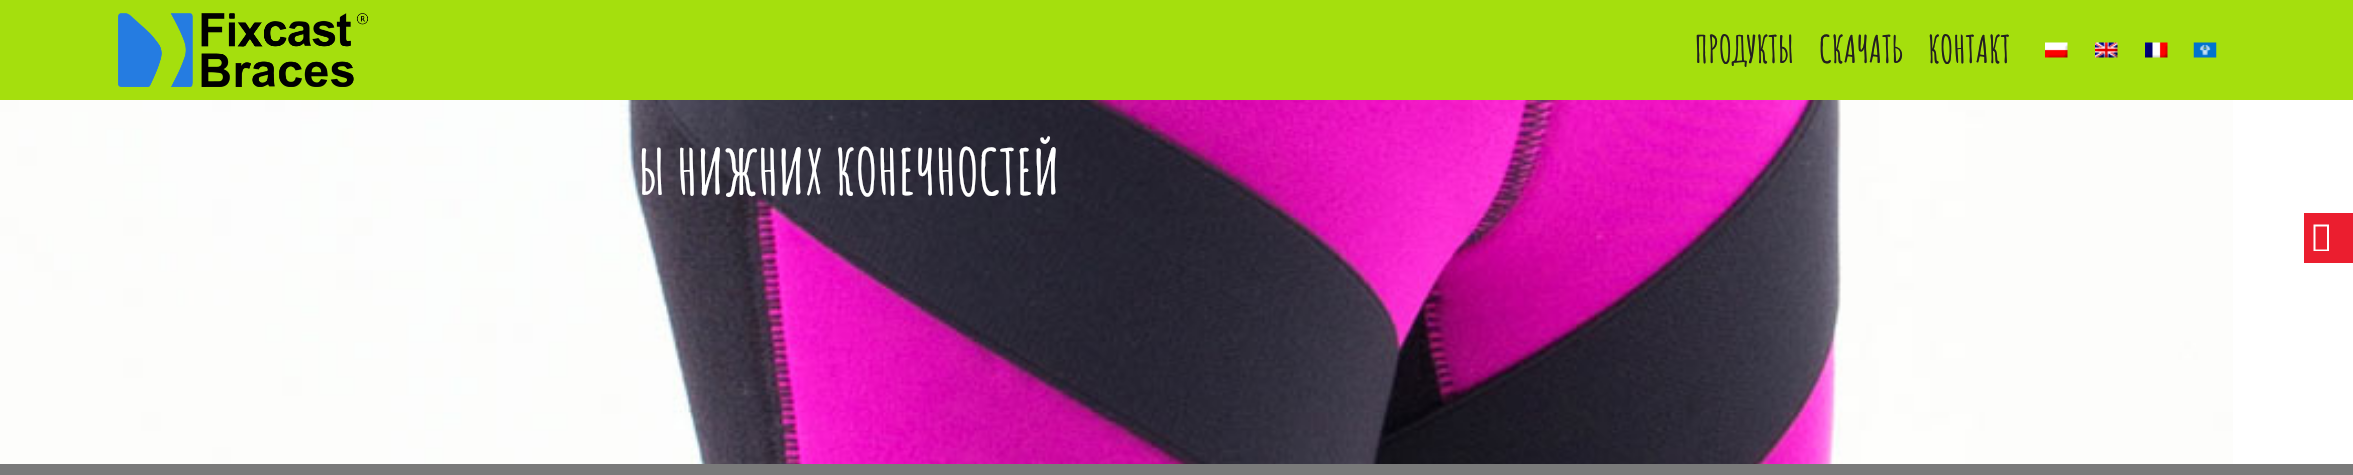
void draw(SkCanvas* canvas) {
  SkPaint paint;
  paint.setAntiAlias(true);
  auto face = [&](const char* family, int weight, float size, bool italic = false) {
    SkFontStyle style(weight, SkFontStyle::kNormal_Width,
      italic ? SkFontStyle::kItalic_Slant : SkFontStyle::kUpright_Slant);
    SkFont result(fontMgr->matchFamilyStyle(family, style), size);
    result.setSubpixel(true);
    return result;
  };
  auto paste = [&](const char* path, float x, float y, float w, float h) {
    auto image = SkImages::DeferredFromEncodedData(SkData::MakeFromFileName(path));
    canvas->drawImageRect(image, SkRect::MakeXYWH(x, y, w, h), SkSamplingOptions());
  };
  auto shape = [&](const char* data, bool evenOdd = false) {
    SkPath result = *SkParsePath::FromSVGString(data);
    if (evenOdd) result.setFillType(SkPathFillType::kEvenOdd);
    return result;
  };
  canvas->clear(0xffffffff);
  paint.setColor(0xffa5df0d);
  canvas->drawRect(SkRect::MakeXYWH(0, 0, 2353, 100), paint);
  paste("img/1.png", 118, 13, 250, 74);
  paste("img/2.png", 2045, 42, 23, 16);
  paste("img/3.png", 2095, 42, 23, 16);
  paste("img/4.png", 2145, 42, 23, 16);
  paste("img/5.png", 2193, 42, 24, 16);
  paste("img/6.png", 0, 100, 2233, 364);
  paint.setColor(0xffeb1e2f);
  canvas->drawRect(SkRect::MakeXYWH(2304, 213, 49, 50), paint);
  paint.setColor(0xffffffff);
  canvas->drawPath(shape("M2313.5 251V224.5H2329V251ZM2315.5 249.5H2327V226.5H2315.5Z"), paint);
  paint.setColor(0xff7a7a7a);
  canvas->drawRect(SkRect::MakeXYWH(0, 464, 2353, 11), paint);
  auto f0 = face("Amatic SC", 700, 37.5f);
  paint.setColor(0xff231f20);
  {
    const struct { const char* s; float x, y; } items[] = {
      {"ПРОДУКТЫ", 1695, 63},
      {"СКАЧАТЬ", 1819, 63},
      {"КОНТАКТ", 1928, 63},
    };
    for (auto [s, x, y] : items) {
      canvas->drawString(s, x, y, f0, paint);
    }
  }
  auto f1 = face("Amatic SC", 700, 62.5f);
  paint.setColor(0xffffffff);
  canvas->drawString("Ы НИЖНИХ КОНЕЧНОСТЕЙ", 639, 195, f1, paint);
}
